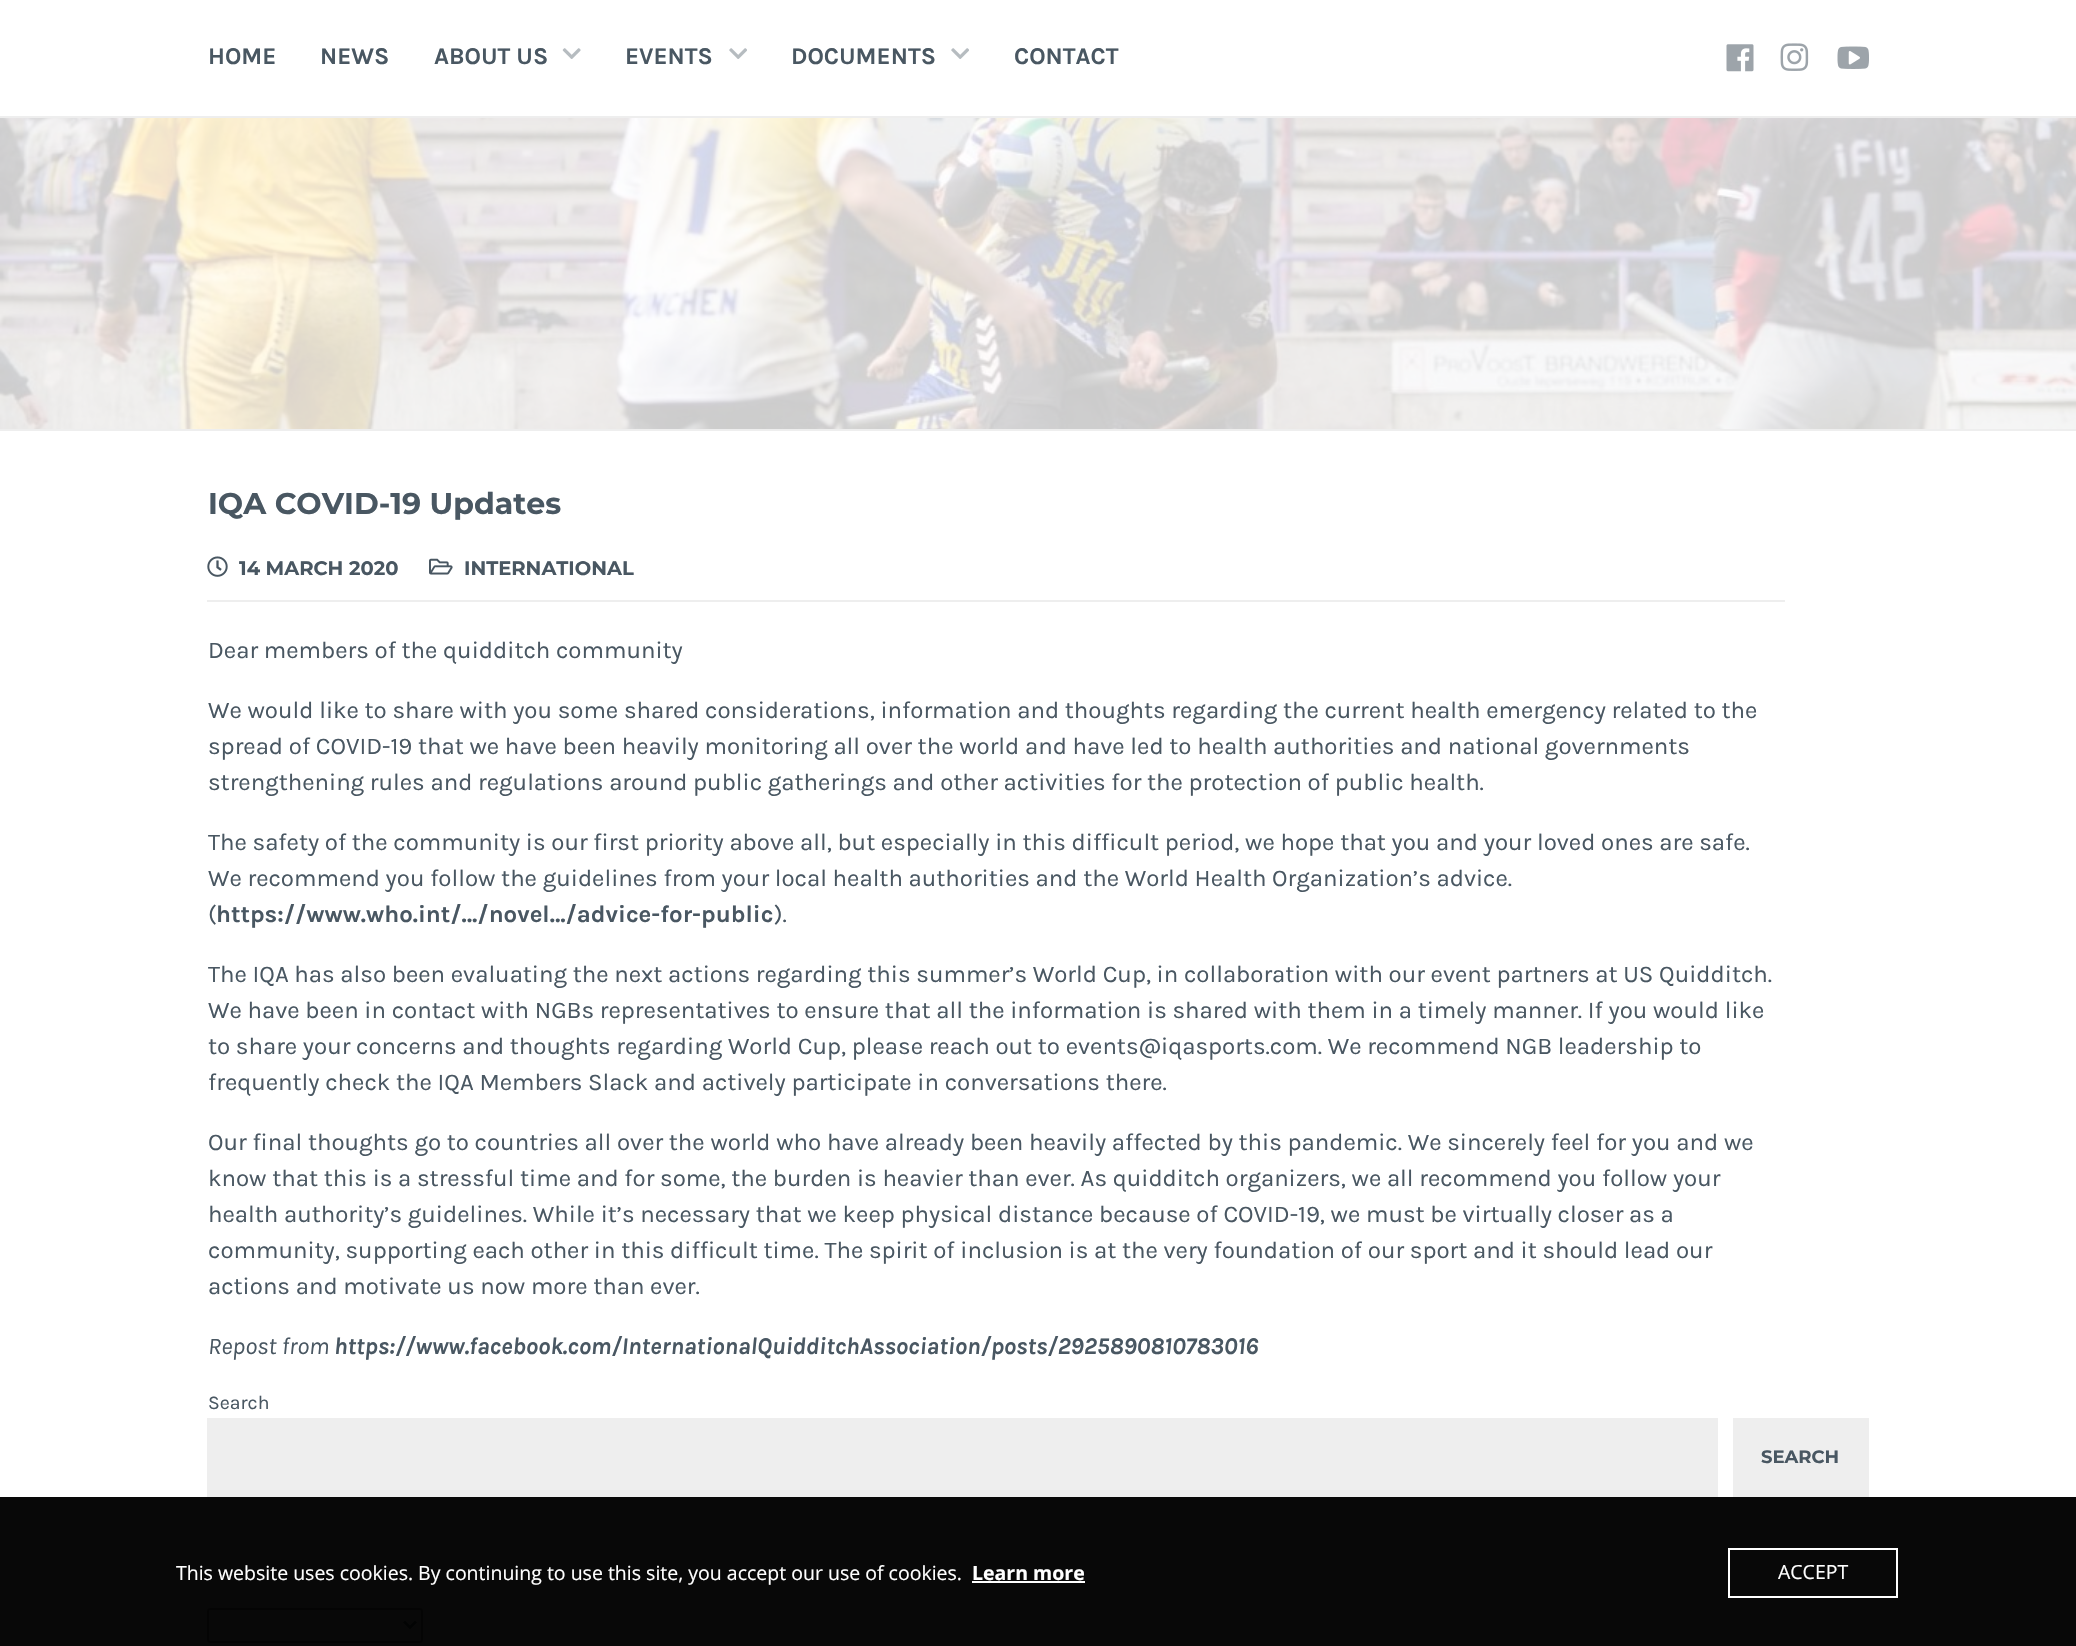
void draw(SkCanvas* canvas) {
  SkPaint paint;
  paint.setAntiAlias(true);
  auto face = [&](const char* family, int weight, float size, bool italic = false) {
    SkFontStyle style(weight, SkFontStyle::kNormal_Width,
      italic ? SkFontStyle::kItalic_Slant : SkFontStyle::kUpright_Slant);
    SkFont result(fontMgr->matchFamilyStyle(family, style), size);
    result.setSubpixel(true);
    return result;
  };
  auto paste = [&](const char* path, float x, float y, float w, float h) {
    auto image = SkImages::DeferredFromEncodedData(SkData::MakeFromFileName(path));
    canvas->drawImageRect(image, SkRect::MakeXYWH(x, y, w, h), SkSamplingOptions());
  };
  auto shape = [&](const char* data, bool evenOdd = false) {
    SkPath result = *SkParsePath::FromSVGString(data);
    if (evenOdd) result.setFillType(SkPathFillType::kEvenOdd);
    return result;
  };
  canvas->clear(0xffffffff);
  paint.setColor(0xff080808);
  canvas->drawRect(SkRect::MakeXYWH(0, 1497, 2076, 149), paint);
  paint.setColor(0xffeeeeee);
  canvas->drawRect(SkRect::MakeXYWH(0, 116, 2076, 2), paint);
  paste("img/1.png", 562, 48, 19, 11);
  paste("img/2.png", 729, 48, 18, 11);
  paste("img/2.png", 951, 48, 18, 11);
  paste("img/3.png", 1726, 44, 28, 28);
  paste("img/4.png", 1780, 43, 29, 28);
  paste("img/5.png", 1837, 46, 32, 23);
  paste("img/6.png", 0, 118, 2076, 311);
  canvas->drawRect(SkRect::MakeXYWH(0, 429, 2076, 2), paint);
  canvas->drawRect(SkRect::MakeXYWH(207, 600, 1578, 2), paint);
  paste("img/7.png", 207, 556, 21, 21);
  paste("img/8.png", 429, 558, 24, 17);
  canvas->drawRect(SkRect::MakeXYWH(207, 1418, 1511, 79), paint);
  canvas->drawRect(SkRect::MakeXYWH(1733, 1418, 136, 79), paint);
  paint.setStroke(true);
  paint.setStrokeWidth(2);
  paint.setColor(0xff040404);
  canvas->drawRoundRect(SkRect::MakeXYWH(208, 1609, 214, 33), 2, 2, paint);
  paint.setStrokeWidth(3);
  paint.setColor(0xff020303);
  canvas->drawPath(shape("M404 1621.5L410 1627.5L416 1621.5"), paint);
  paint.setStroke(false);
  paint.setColor(0xffffffff);
  canvas->drawRect(SkRect::MakeXYWH(972, 1581, 113, 2), paint);
  paint.setStroke(true);
  paint.setStrokeWidth(2);
  canvas->drawRect(SkRect::MakeXYWH(1729, 1549, 168, 48), paint);
  auto f0 = face("Karla", 700, 24);
  paint.setStroke(false);
  paint.setColor(0xff495762);
  {
    const struct { const char* s; float x, y; } items[] = {
      {"HOME", 208, 64},
      {"NEWS", 320, 64},
      {"ABOUT US", 434, 64},
      {"EVENTS", 625, 64},
      {"DOCUMENTS", 791, 64},
      {"CONTACT", 1014, 64},
    };
    for (auto [s, x, y] : items) {
      canvas->drawString(s, x, y, f0, paint);
    }
  }
  auto f1 = face("Montserrat", 700, 30);
  canvas->drawString("IQA COVID-19 Updates", 208, 514, f1, paint);
  auto f2 = face("Montserrat", 700, 19.5f);
  canvas->drawString("14 MARCH 2020", 239, 575, f2, paint);
  canvas->drawString("INTERNATIONAL", 464, 575, f2, paint);
  auto f3 = face("Karla", 400, 24);
  {
    const struct { const char* s; float x, y; } items[] = {
      {"Dear members of the quidditch community", 208, 658},
      {"We would like to share with you some shared considerations, information and thoughts regarding the current health emergency related to the", 208, 718},
      {"spread of COVID-19 that we have been heavily monitoring all over the world and have led to health authorities and national governments", 208, 754},
      {"strengthening rules and regulations around public gatherings and other activities for the protection of public health.", 208, 790},
      {"The safety of the community is our first priority above all, but especially in this difficult period, we hope that you and your loved ones are safe.", 208, 850},
      {"We recommend you follow the guidelines from your local health authorities and the World Health Organization’s advice.", 208, 886},
      {"(", 208, 922},
    };
    for (auto [s, x, y] : items) {
      canvas->drawString(s, x, y, f3, paint);
    }
  }
  canvas->drawString("https://www.who.int/…/novel…/advice-for-public", 216, 922, f0, paint);
  {
    const struct { const char* s; float x, y; } items[] = {
      {").", 774, 922},
      {"The IQA has also been evaluating the next actions regarding this summer’s World Cup, in collaboration with our event partners at US Quidditch.", 208, 982},
      {"We have been in contact with NGBs representatives to ensure that all the information is shared with them in a timely manner. If you would like", 208, 1018},
      {"to share your concerns and thoughts regarding World Cup, please reach out to events@iqasports.com. We recommend NGB leadership to", 208, 1054},
      {"frequently check the IQA Members Slack and actively participate in conversations there.", 208, 1090},
      {"Our final thoughts go to countries all over the world who have already been heavily affected by this pandemic. We sincerely feel for you and we", 208, 1150},
      {"know that this is a stressful time and for some, the burden is heavier than ever. As quidditch organizers, we all recommend you follow your", 208, 1186},
      {"health authority’s guidelines. While it’s necessary that we keep physical distance because of COVID-19, we must be virtually closer as a", 208, 1222},
      {"community, supporting each other in this difficult time. The spirit of inclusion is at the very foundation of our sport and it should lead our", 208, 1258},
      {"actions and motivate us now more than ever.", 208, 1294},
    };
    for (auto [s, x, y] : items) {
      canvas->drawString(s, x, y, f3, paint);
    }
  }
  auto f4 = face("Karla", 400, 24, true);
  canvas->drawString("Repost from", 208, 1354, f4, paint);
  auto f5 = face("Karla", 700, 24, true);
  canvas->drawString("https://www.facebook.com/InternationalQuidditchAssociation/posts/2925890810783016", 334, 1354, f5, paint);
  auto f6 = face("Karla", 400, 19.5f);
  canvas->drawString("Search", 208, 1409, f6, paint);
  auto f7 = face("Montserrat", 700, 18);
  canvas->drawString("SEARCH", 1761, 1463, f7, paint);
  auto f8 = face("Open Sans", 400, 19.5f);
  paint.setColor(0xffffffff);
  canvas->drawString("This website uses cookies. By continuing to use this site, you accept our use of cookies.", 176, 1580, f8, paint);
  auto f9 = face("Open Sans", 700, 19.5f);
  canvas->drawString("Learn more", 972, 1580, f9, paint);
  canvas->drawString("ACCEPT", 1778, 1579, f8, paint);
}
